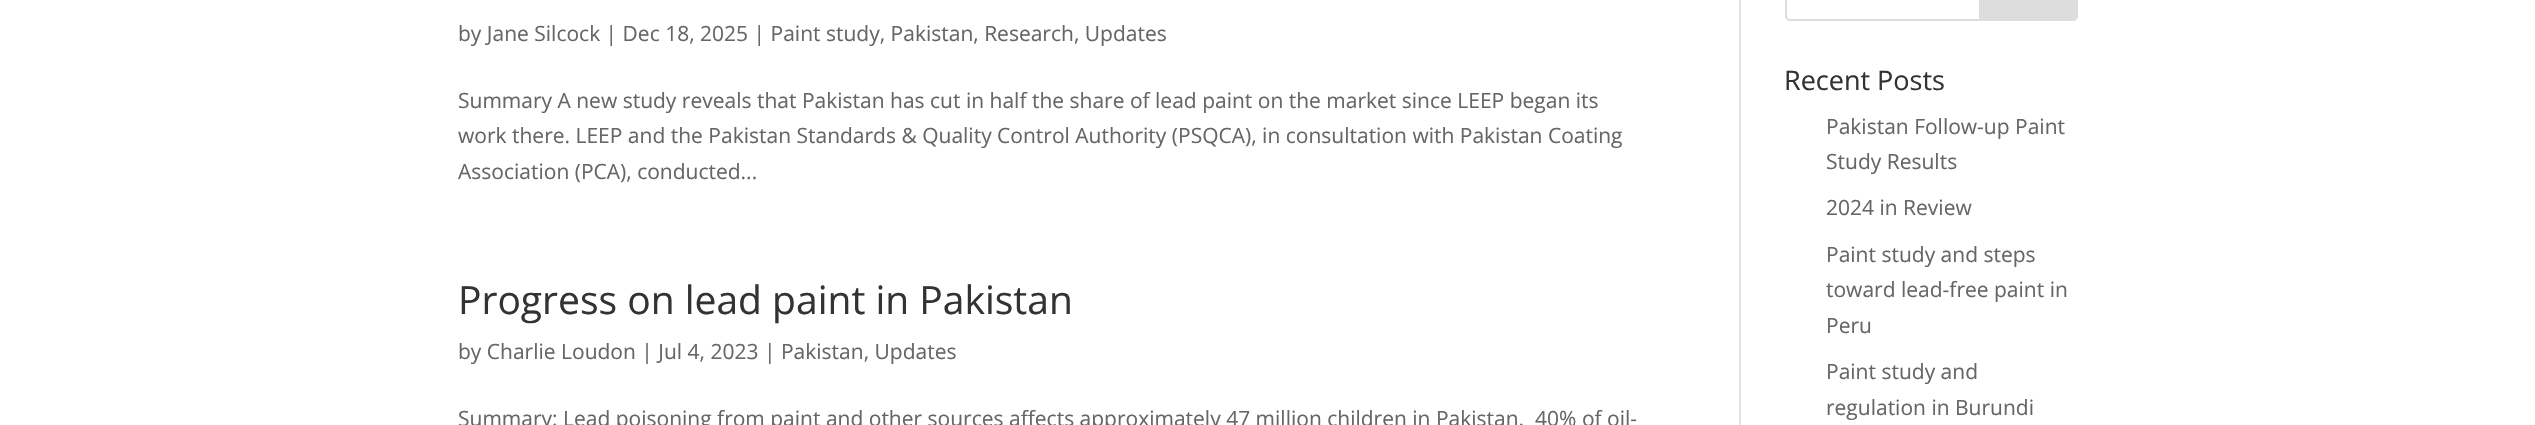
void draw(SkCanvas* canvas) {
  SkPaint paint;
  paint.setAntiAlias(true);
  auto face = [&](const char* family, int weight, float size, bool italic = false) {
    SkFontStyle style(weight, SkFontStyle::kNormal_Width,
      italic ? SkFontStyle::kItalic_Slant : SkFontStyle::kUpright_Slant);
    SkFont result(fontMgr->matchFamilyStyle(family, style), size);
    result.setSubpixel(true);
    return result;
  };
  auto shape = [&](const char* data, bool evenOdd = false) {
    SkPath result = *SkParsePath::FromSVGString(data);
    if (evenOdd) result.setFillType(SkPathFillType::kEvenOdd);
    return result;
  };
  canvas->clear(0xffffffff);
  paint.setColor(0xffe2e2e2);
  canvas->drawRect(SkRect::MakeXYWH(1739, 0, 2, 425), paint);
  paint.setStroke(true);
  paint.setStrokeWidth(2);
  paint.setColor(0xffdddddd);
  canvas->drawRoundRect(SkRect::MakeXYWH(1786, -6, 291, 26), 4, 4, paint);
  paint.setStroke(false);
  canvas->drawPath(shape("M1980-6H2073C2075-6 2077-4 2077-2V16C2077 18 2075 20 2073 20H1980Z"), paint);
  paint.setStroke(true);
  canvas->drawPath(shape("M1980-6H2073C2075-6 2077-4 2077-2V16C2077 18 2075 20 2073 20H1980Z"), paint);
  auto f0 = face("Open Sans", 400, 21);
  paint.setStroke(false);
  paint.setColor(0xff666666);
  {
    const struct { const char* s; float x, y; } items[] = {
      {"by Jane Silcock | Dec 18, 2025 | Paint study, Pakistan, Research, Updates", 458, 41},
      {"Summary A new study reveals that Pakistan has cut in half the share of lead paint on the market since LEEP began its", 458, 108},
      {"work there. LEEP and the Pakistan Standards & Quality Control Authority (PSQCA), in consultation with Pakistan Coating", 458, 143},
      {"Association (PCA), conducted...", 458, 179},
    };
    for (auto [s, x, y] : items) {
      canvas->drawString(s, x, y, f0, paint);
    }
  }
  auto f1 = face("Open Sans", 400, 39);
  paint.setColor(0xff333333);
  canvas->drawString("Progress on lead paint in Pakistan", 458, 314, f1, paint);
  paint.setColor(0xff666666);
  canvas->drawString("by Charlie Loudon | Jul 4, 2023 | Pakistan, Updates", 458, 359, f0, paint);
  canvas->drawString("Summary: Lead poisoning from paint and other sources affects approximately 47 million children in Pakistan.  40% of oil-", 458, 426, f0, paint);
  auto f2 = face("Open Sans", 400, 27);
  paint.setColor(0xff333333);
  canvas->drawString("Recent Posts", 1784, 90, f2, paint);
  paint.setColor(0xff666666);
  {
    const struct { const char* s; float x, y; } items[] = {
      {"Pakistan Follow-up Paint", 1826, 134},
      {"Study Results", 1826, 169},
      {"2024 in Review", 1826, 215},
      {"Paint study and steps", 1826, 262},
      {"toward lead-free paint in", 1826, 297},
      {"Peru", 1826, 333},
      {"Paint study and", 1826, 379},
      {"regulation in Burundi", 1826, 415},
    };
    for (auto [s, x, y] : items) {
      canvas->drawString(s, x, y, f0, paint);
    }
  }
}
